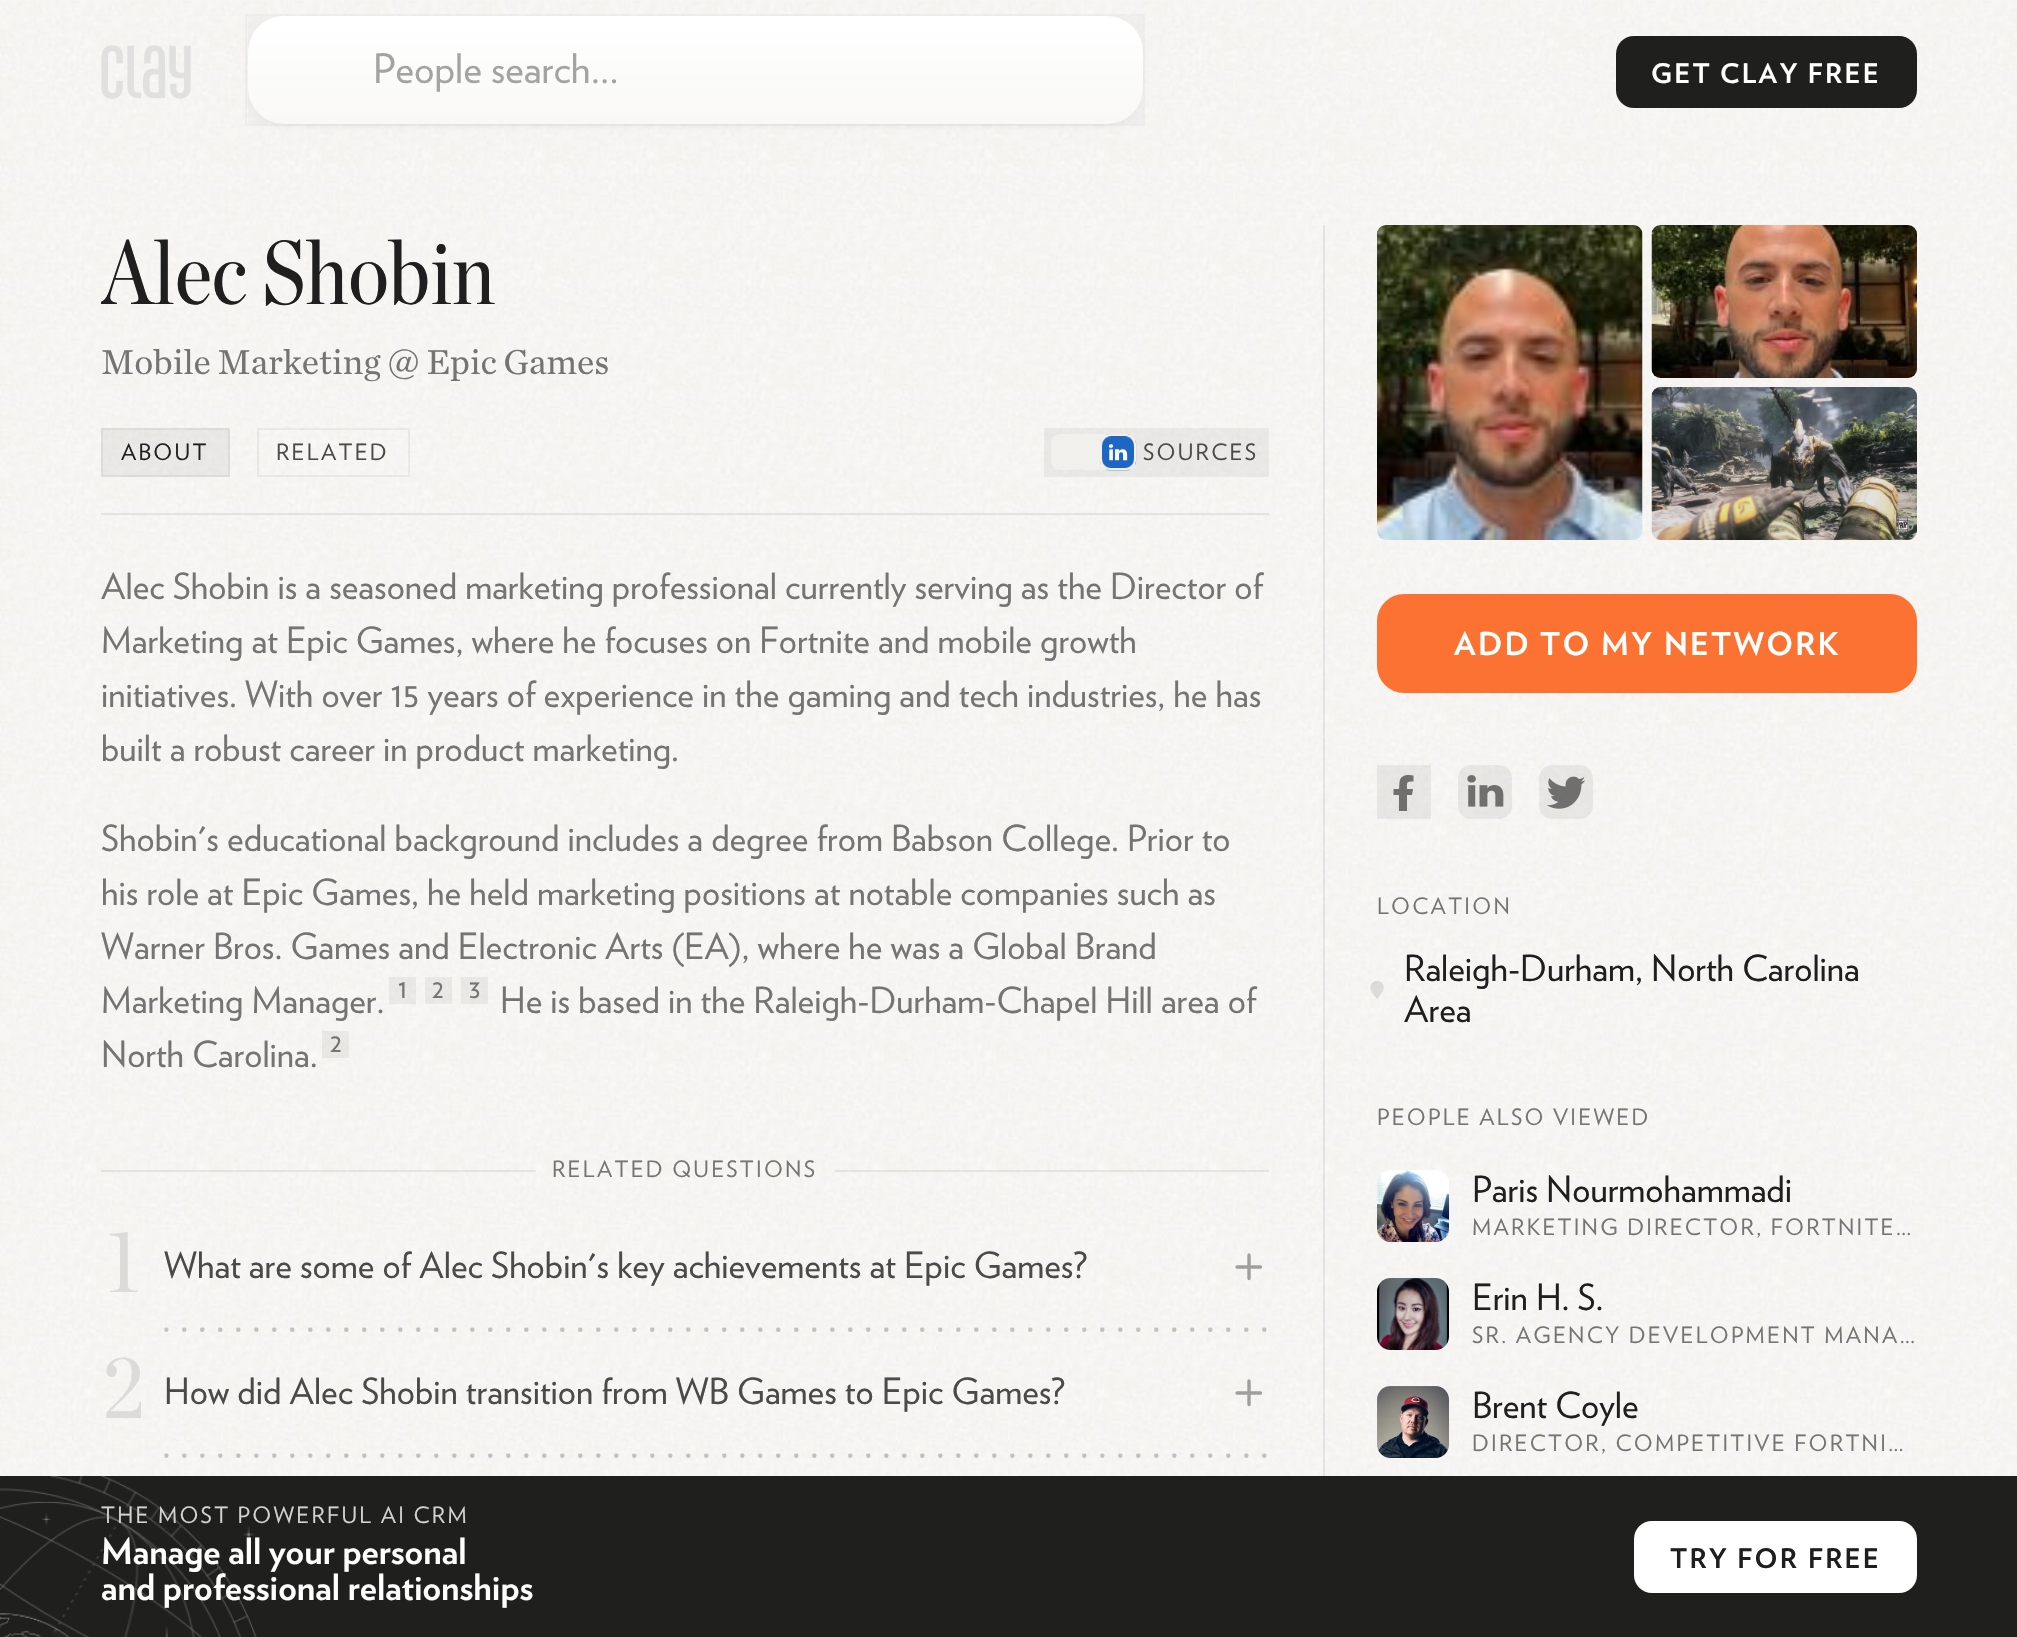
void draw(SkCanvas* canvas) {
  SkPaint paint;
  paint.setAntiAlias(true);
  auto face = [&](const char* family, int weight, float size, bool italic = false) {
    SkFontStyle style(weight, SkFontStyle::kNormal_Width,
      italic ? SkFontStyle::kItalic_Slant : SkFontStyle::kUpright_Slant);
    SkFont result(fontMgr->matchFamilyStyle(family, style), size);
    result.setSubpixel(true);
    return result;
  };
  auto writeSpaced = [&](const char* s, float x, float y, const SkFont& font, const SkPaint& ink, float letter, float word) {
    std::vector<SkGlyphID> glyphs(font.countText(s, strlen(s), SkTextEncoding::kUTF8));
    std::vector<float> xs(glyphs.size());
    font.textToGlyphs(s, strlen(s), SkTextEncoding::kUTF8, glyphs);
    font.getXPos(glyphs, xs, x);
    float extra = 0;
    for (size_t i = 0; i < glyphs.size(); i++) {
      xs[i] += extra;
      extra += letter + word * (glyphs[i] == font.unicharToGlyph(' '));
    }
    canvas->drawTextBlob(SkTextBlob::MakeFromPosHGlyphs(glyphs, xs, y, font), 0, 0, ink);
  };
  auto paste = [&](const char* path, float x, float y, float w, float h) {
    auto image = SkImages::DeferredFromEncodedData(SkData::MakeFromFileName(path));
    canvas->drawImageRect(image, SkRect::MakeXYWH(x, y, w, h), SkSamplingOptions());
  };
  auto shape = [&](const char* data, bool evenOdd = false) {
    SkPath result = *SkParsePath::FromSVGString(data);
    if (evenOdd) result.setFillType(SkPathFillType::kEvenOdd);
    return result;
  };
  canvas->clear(0xffffffff);
  paste("img/1.png", 0, 0, 2017, 1476);
  paste("img/2.png", 101, 45, 90, 54);
  paint.setColor(0x14000000);
  paint.setMaskFilter(SkMaskFilter::MakeBlur(kNormal_SkBlurStyle, 4.5f));
  canvas->drawRoundRect(SkRect::MakeXYWH(252, 25, 887, 99), 32, 32, paint);
  paint.setMaskFilter(nullptr);
  paint.setColor(0xfff8f7f4);
  canvas->drawRoundRect(SkRect::MakeXYWH(248, 16, 895, 108), 36, 36, paint);
  paint.setColor(0x0f959595);
  canvas->drawRect(SkRect::MakeXYWH(248, 16, 895, 108), paint);
  {
    const SkColor colors[] = {0xffffffff, 0x80ffffff};
    const float stops[] = {0, 1};
    const SkPoint ends[] = {{695, 16}, {695, 124}};
    paint.setShader(SkGradientShader::MakeLinear(ends, colors, stops, 2, SkTileMode::kClamp));
    paint.setAlpha(255);
  }
  canvas->drawRoundRect(SkRect::MakeXYWH(248, 16, 895, 108), 36, 36, paint);
  paint.setStroke(true);
  paint.setStrokeWidth(2);
  paint.setShader(nullptr);
  paint.setColor(0x08000000);
  canvas->drawRect(SkRect::MakeXYWH(246, 15, 898, 110), paint);
  paint.setStroke(false);
  paint.setColor(0xff1f1f1e);
  canvas->drawRoundRect(SkRect::MakeXYWH(1616, 36, 301, 72), 18, 18, paint);
  paint.setColor(0x141f1f1f);
  canvas->drawRect(SkRect::MakeXYWH(101, 513, 1168, 2), paint);
  paint.setColor(0x0f1f1f1f);
  canvas->drawRect(SkRect::MakeXYWH(101, 428, 129, 49), paint);
  paint.setStroke(true);
  canvas->drawRect(SkRect::MakeXYWH(102, 429, 127, 47), paint);
  canvas->drawRect(SkRect::MakeXYWH(258, 429, 151, 47), paint);
  paint.setStroke(false);
  canvas->drawRect(SkRect::MakeXYWH(1044, 428, 225, 49), paint);
  paint.setColor(0xfff1f0ed);
  canvas->drawRoundRect(SkRect::MakeXYWH(1051, 434, 36, 36), 9, 9, paint);
  canvas->drawRoundRect(SkRect::MakeXYWH(1076, 434, 36, 36), 9, 9, paint);
  canvas->drawRoundRect(SkRect::MakeXYWH(1100, 434, 36, 36), 9, 9, paint);
  paste("img/3.png", 1100, 434, 37, 37);
  paint.setStroke(true);
  canvas->drawRoundRect(SkRect::MakeXYWH(1101, 435, 34, 34), 8, 8, paint);
  paint.setStroke(false);
  {
    const struct { float x, y, w, h; SkColor color; } items[] = {
      {1323, 225, 2, 1251, 0x141f1f1f},
      {389, 977, 27, 27, 0x0f1f1f1f},
      {425, 977, 27, 27, 0x0f1f1f1f},
      {461, 977, 27, 27, 0x0f1f1f1f},
      {322, 1031, 27, 27, 0x0f1f1f1f},
      {101, 1170, 435, 2, 0x141f1f1f},
      {835, 1170, 434, 2, 0x141f1f1f},
    };
    for (auto [x, y, w, h, color] : items) {
      paint.setColor(color);
      canvas->drawRect(SkRect::MakeXYWH(x, y, w, h), paint);
    }
  }
  paint.setStroke(true);
  paint.setStrokeWidth(3.4f);
  paint.setStrokeCap(SkPaint::kRound_Cap);
  paint.setColor(0x661f1f1e);
  canvas->drawPath(shape("M1237 1267H1260.5M1249 1278.5V1255"), paint);
  paste("img/4.png", 164, 1327, 1103, 5);
  canvas->drawPath(shape("M1237 1393H1260.5M1249 1404.5V1381"), paint);
  paste("img/5.png", 164, 1453, 1103, 5);
  paste("img/6.png", 1377, 225, 266, 315);
  paste("img/7.png", 1651, 225, 266, 153);
  paste("img/8.png", 1651, 387, 266, 153);
  paint.setStroke(false);
  paint.setColor(0xfffb7232);
  canvas->drawRoundRect(SkRect::MakeXYWH(1377, 594, 540, 99), 27, 27, paint);
  paint.setColor(0x0f000000);
  canvas->drawRect(SkRect::MakeXYWH(1377, 765, 54, 54), paint);
  paint.setColor(0x991f1f1f);
  canvas->drawPath(shape("M1412 795L1413 789H1407C1407 782 1406 781.5 1413.5 781.5V775.5C1408 774.5 1400.5 774.5 1399.5 782L1399 789H1393.5V795H1399V811H1407V795Z"), paint);
  paste("img/9.png", 1458, 765, 54, 54);
  paste("img/10.png", 1539, 765, 54, 54);
  paste("img/11.png", 1370, 981, 14, 18);
  paste("img/12.png", 1377, 1170, 72, 72);
  paste("img/13.png", 1377, 1278, 72, 72);
  paste("img/14.png", 1377, 1386, 72, 72);
  paint.setColor(0xff1f1f1e);
  canvas->drawRect(SkRect::MakeXYWH(0, 1476, 2017, 161), paint);
  paste("img/15.png", 0, 1476, 257, 161);
  paint.setColor(0xffffffff);
  canvas->drawRoundRect(SkRect::MakeXYWH(1634, 1521, 283, 72), 18, 18, paint);
  auto f0 = face("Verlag", 400, 40.5f);
  paint.setColor(0xffa3a3a3);
  canvas->drawString("People search…", 373, 83, f0, paint);
  auto f1 = face("Verlag", 700, 27);
  paint.setColor(0xffffffff);
  writeSpaced("GET", 1651, 83, f1, paint, 2.25f, 0);
  writeSpaced("CLAY FREE", 1720, 83, f1, paint, 2.25f, 0);
  canvas->save();
  canvas->clipRect(SkRect::MakeXYWH(101, 212, 1168, 112));
  auto f2 = face("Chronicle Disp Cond", 400, 90);
  paint.setColor(0xff1f1f1f);
  canvas->drawString("Alec Shobin", 101, 304, f2, paint);
  canvas->restore();
  auto f3 = face("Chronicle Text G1", 400, 36);
  paint.setColor(0xff757473);
  canvas->drawString("Mobile Marketing @ Epic Games", 101, 374, f3, paint);
  auto f4 = face("Verlag", 400, 22.5f);
  paint.setColor(0xff1f1f1f);
  writeSpaced("ABOUT", 121, 460, f4, paint, 2.25f, 0);
  paint.setColor(0xff4a4a49);
  writeSpaced("RELATED", 276, 460, f4, paint, 2.25f, 0);
  writeSpaced("SOURCES", 1143, 460, f4, paint, 2.25f, 0);
  auto f5 = face("Verlag", 400, 36);
  paint.setColor(0xff757473);
  {
    const struct { const char* s; float x, y; } items[] = {
      {"Alec Shobin is a seasoned marketing professional currently serving as the Director of", 101, 599},
      {"Marketing at Epic Games, where he focuses on Fortnite and mobile growth", 101, 653},
      {"initiatives. With over 15 years of experience in the gaming and tech industries, he has", 101, 707},
      {"built a robust career in product marketing.", 101, 761},
      {"Shobin's educational background includes a degree from Babson College. Prior to", 101, 851},
      {"his role at Epic Games, he held marketing positions at notable companies such as", 101, 905},
      {"Warner Bros. Games and Electronic Arts (EA), where he was a Global Brand", 101, 959},
      {"Marketing Manager.", 101, 1013},
    };
    for (auto [s, x, y] : items) {
      canvas->drawString(s, x, y, f5, paint);
    }
  }
  auto f6 = face("Verlag", 400, 27);
  {
    const struct { const char* s; float x, y; } items[] = {
      {"1", 398, 998},
      {"2", 432, 998},
      {"3", 469, 998},
    };
    for (auto [s, x, y] : items) {
      canvas->drawString(s, x, y, f6, paint);
    }
  }
  canvas->drawString("He is based in the Raleigh-Durham-Chapel Hill area of", 500, 1013, f5, paint);
  canvas->drawString("North Carolina.", 101, 1067, f5, paint);
  canvas->drawString("2", 330, 1052, f6, paint);
  writeSpaced("RELATED QUESTIONS", 552, 1177, f4, paint, 2.25f, 0);
  paint.setColor(0xffdcdbd8);
  canvas->drawString("1", 107, 1292, f2, paint);
  paint.setColor(0xff4a4a49);
  canvas->drawString("What are some of Alec Shobin's key achievements at Epic Games?", 164, 1278, f5, paint);
  paint.setColor(0xffdcdbd8);
  canvas->drawString("2", 102, 1418, f2, paint);
  paint.setColor(0xff4a4a49);
  canvas->drawString("How did Alec Shobin transition from WB Games to Epic Games?", 164, 1404, f5, paint);
  auto f7 = face("Verlag", 700, 31.5f);
  paint.setColor(0xffffffff);
  {
    const struct { const char* s; float x, y; } items[] = {
      {"ADD", 1454, 655},
      {"TO", 1540, 655},
      {"MY", 1601, 655},
      {"NETWORK", 1664, 655},
    };
    for (auto [s, x, y] : items) {
      writeSpaced(s, x, y, f7, paint, 2.25f, 0);
    }
  }
  paint.setColor(0xff757473);
  writeSpaced("LOCATION", 1377, 914, f4, paint, 2.25f, 0);
  paint.setColor(0xff1f1f1f);
  canvas->drawString("Raleigh-Durham, North Carolina", 1404, 981, f5, paint);
  canvas->drawString("Area", 1404, 1022, f5, paint);
  paint.setColor(0xff757473);
  writeSpaced("PEOPLE ALSO VIEWED", 1377, 1125, f4, paint, 2.25f, 0);
  paint.setColor(0xff1f1f1f);
  canvas->drawString("Paris Nourmohammadi", 1472, 1202, f5, paint);
  paint.setColor(0xff757473);
  writeSpaced("MARKETING DIRECTOR, FORTNITE…", 1472, 1235, f4, paint, 2.25f, 0);
  paint.setColor(0xff1f1f1f);
  canvas->drawString("Erin H. S.", 1472, 1310, f5, paint);
  paint.setColor(0xff757473);
  writeSpaced("SR. AGENCY DEVELOPMENT MANA…", 1472, 1343, f4, paint, 2.25f, 0);
  paint.setColor(0xff1f1f1f);
  canvas->drawString("Brent Coyle", 1472, 1418, f5, paint);
  paint.setColor(0xff757473);
  writeSpaced("DIRECTOR, COMPETITIVE FORTNI…", 1472, 1451, f4, paint, 2.25f, 0);
  paint.setColor(0xffd2d2d2);
  writeSpaced("THE MOST POWERFUL AI CRM", 101, 1523, f4, paint, 2.25f, 0);
  auto f8 = face("Verlag", 700, 36);
  paint.setColor(0xffffffff);
  canvas->drawString("Manage all your personal", 101, 1564, f8, paint);
  canvas->drawString("and professional relationships", 101, 1600, f8, paint);
  paint.setColor(0xff1f1f1f);
  writeSpaced("TRY FOR", 1670, 1568, f1, paint, 2.25f, 0);
  writeSpaced("FREE", 1808, 1568, f1, paint, 2.25f, 0);
}
